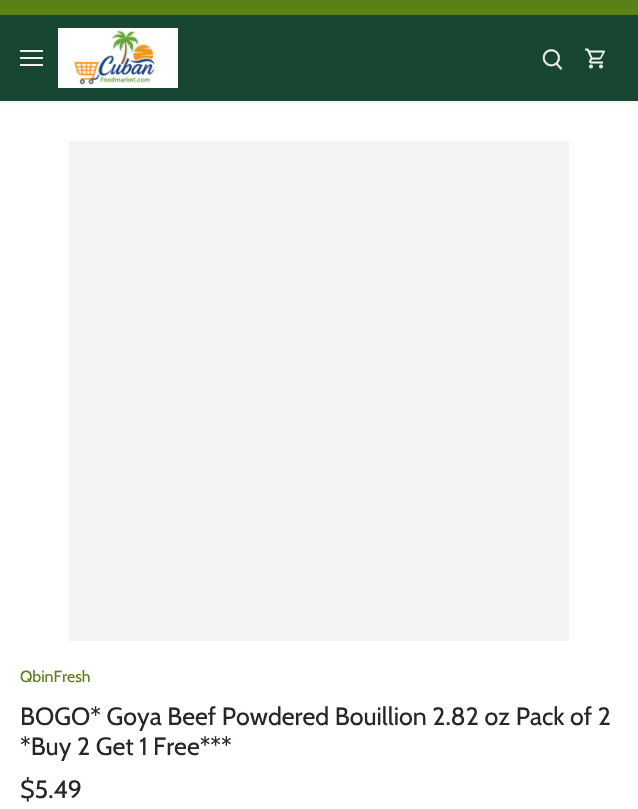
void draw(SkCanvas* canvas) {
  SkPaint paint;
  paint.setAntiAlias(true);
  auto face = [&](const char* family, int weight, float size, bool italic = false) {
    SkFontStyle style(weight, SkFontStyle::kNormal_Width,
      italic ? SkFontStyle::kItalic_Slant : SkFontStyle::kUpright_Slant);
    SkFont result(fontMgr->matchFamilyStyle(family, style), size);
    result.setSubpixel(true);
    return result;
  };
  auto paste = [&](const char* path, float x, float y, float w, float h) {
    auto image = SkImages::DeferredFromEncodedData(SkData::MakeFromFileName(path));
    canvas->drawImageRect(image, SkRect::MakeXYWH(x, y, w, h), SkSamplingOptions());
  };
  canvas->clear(0xffffffff);
  paint.setColor(0x14000000);
  paint.setMaskFilter(SkMaskFilter::MakeBlur(kNormal_SkBlurStyle, 1.5f));
  canvas->drawRect(SkRect::MakeXYWH(-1, 14, 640, 88), paint);
  paint.setMaskFilter(nullptr);
  {
    const struct { float x, y, w, h; SkColor color; } items[] = {
      {0, 0, 638, 15, 0xff5c8018},
      {0, 15, 638, 86, 0xff174733},
      {20, 50, 23, 2, 0xfff4f2e9},
      {20, 57, 23, 2, 0xfff4f2e9},
      {20, 64, 23, 2, 0xfff4f2e9},
    };
    for (auto [x, y, w, h, color] : items) {
      paint.setColor(color);
      canvas->drawRect(SkRect::MakeXYWH(x, y, w, h), paint);
    }
  }
  paste("img/1.png", 58, 28, 120, 60);
  paste("img/2.png", 542, 49, 21, 21);
  paste("img/3.png", 585, 48, 20, 21);
  paint.setColor(0xfff3f3f3);
  canvas->drawRect(SkRect::MakeXYWH(69, 141, 500, 500), paint);
  auto f0 = face("Cabin", 400, 16);
  paint.setColor(0xff5c8018);
  canvas->drawString("QbinFresh", 20, 682, f0, paint);
  auto f1 = face("Cabin", 400, 25);
  paint.setColor(0xff2c2528);
  {
    const struct { const char* s; float x, y; } items[] = {
      {"BOGO* Goya Beef Powdered Bouillion 2.82 oz Pack of 2", 20, 725},
      {"*Buy 2 Get 1 Free***", 20, 755},
      {"$5.49", 20, 798},
    };
    for (auto [s, x, y] : items) {
      canvas->drawString(s, x, y, f1, paint);
    }
  }
}
